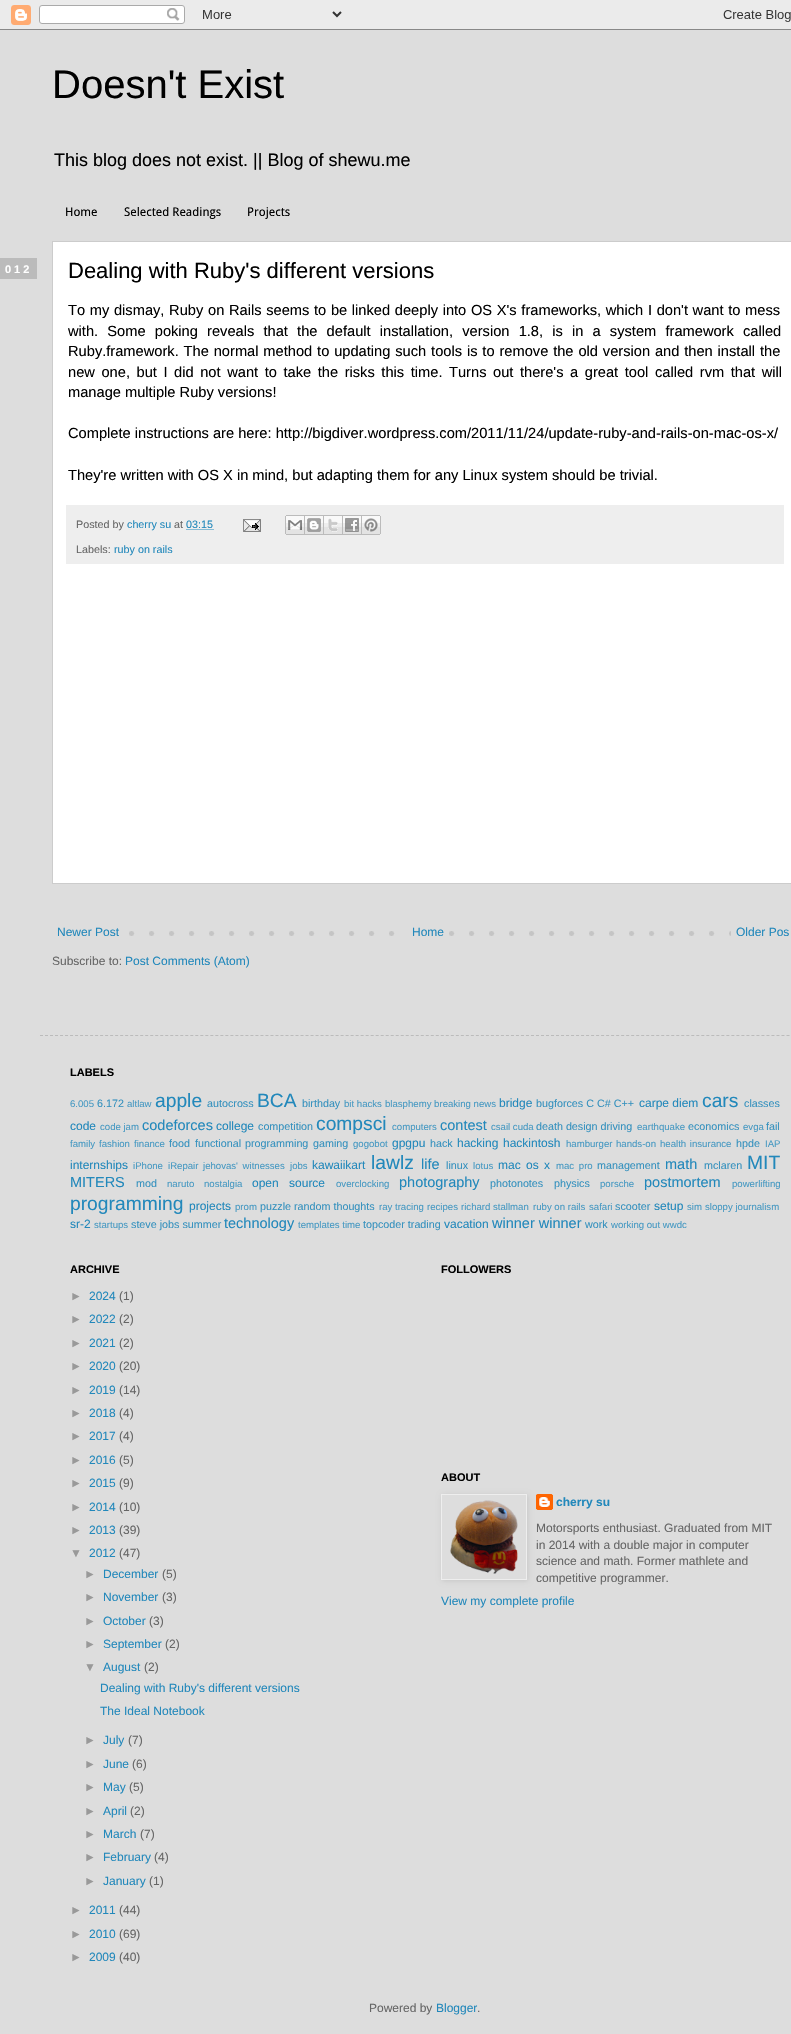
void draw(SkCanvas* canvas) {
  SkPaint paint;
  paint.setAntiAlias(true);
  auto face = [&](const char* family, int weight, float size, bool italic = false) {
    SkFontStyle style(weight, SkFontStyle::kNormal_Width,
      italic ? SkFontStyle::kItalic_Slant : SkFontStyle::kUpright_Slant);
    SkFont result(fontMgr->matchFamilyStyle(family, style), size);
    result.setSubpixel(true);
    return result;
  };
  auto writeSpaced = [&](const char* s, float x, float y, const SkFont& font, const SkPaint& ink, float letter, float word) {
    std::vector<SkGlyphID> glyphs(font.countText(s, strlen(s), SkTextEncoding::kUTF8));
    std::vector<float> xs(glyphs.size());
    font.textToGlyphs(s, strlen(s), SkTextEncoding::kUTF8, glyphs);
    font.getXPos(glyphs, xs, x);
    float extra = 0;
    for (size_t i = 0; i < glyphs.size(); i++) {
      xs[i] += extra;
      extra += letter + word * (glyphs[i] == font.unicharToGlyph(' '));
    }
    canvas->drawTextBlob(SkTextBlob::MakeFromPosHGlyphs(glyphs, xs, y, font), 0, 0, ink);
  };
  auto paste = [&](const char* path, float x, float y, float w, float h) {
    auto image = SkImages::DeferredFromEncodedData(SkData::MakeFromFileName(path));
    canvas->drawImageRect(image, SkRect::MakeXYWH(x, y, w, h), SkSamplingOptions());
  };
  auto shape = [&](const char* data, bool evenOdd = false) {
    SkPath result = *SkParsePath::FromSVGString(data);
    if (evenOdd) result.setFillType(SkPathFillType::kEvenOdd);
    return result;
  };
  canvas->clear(0xffdddddd);
  paste("img/1.png", 0, 0, 791, 30);
  paint.setColor(0xffbbbbbb);
  canvas->drawRect(SkRect::MakeXYWH(0, 258, 37, 21), paint);
  paint.setColor(0xffffffff);
  canvas->drawRect(SkRect::MakeXYWH(52.5f, 241.5f, 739, 642), paint);
  paint.setStroke(true);
  paint.setStrokeWidth(1);
  paint.setColor(0xffcccccc);
  canvas->drawRect(SkRect::MakeXYWH(52.5f, 241.5f, 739, 642), paint);
  paint.setStroke(false);
  paint.setColor(0xffeeeeee);
  canvas->drawRect(SkRect::MakeXYWH(66, 505, 718, 59), paint);
  paint.setStroke(true);
  paint.setColor(0xff2288bb);
  paint.setPathEffect(SkDashPathEffect::Make({{1, 1}}, 0));
  canvas->drawPath(shape("M186.5 529.5H213.5"), paint);
  paint.setPathEffect(nullptr);
  paste("img/2.png", 243, 519, 18, 13);
  paste("img/3.png", 285, 515, 20, 20);
  paste("img/4.png", 305, 515, 19, 20);
  paste("img/5.png", 324, 515, 19, 20);
  paste("img/6.png", 343, 515, 19, 20);
  paste("img/7.png", 362, 515, 19, 20);
  paste("img/8.png", 129, 931, 602, 5);
  paint.setStroke(false);
  paint.setColor(0xffdddddd);
  canvas->drawRect(SkRect::MakeXYWH(409, 931, 26, 5), paint);
  paint.setStroke(true);
  paint.setColor(0xffbbbbbb);
  paint.setPathEffect(SkDashPathEffect::Make({{3, 2.01f}}, 0));
  canvas->drawPath(shape("M40 1035.5H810"), paint);
  paint.setPathEffect(nullptr);
  paste("img/10.png", 536, 1494, 17, 16);
  canvas->save();
  canvas->clipPath(shape("M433 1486H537V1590H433ZM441 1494H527V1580H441Z", true), true);
  paint.setStroke(false);
  paint.setColor(0x1a000000);
  paint.setMaskFilter(SkMaskFilter::MakeBlur(kNormal_SkBlurStyle, 2.5f));
  canvas->drawRect(SkRect::MakeXYWH(442, 1495, 86, 86), paint);
  paint.setMaskFilter(nullptr);
  canvas->restore();
  paint.setStroke(true);
  paint.setColor(0xffeeeeee);
  canvas->drawRect(SkRect::MakeXYWH(441.5f, 1494.5f, 85, 85), paint);
  paste("img/9.png", 450, 1500, 68, 74);
  auto f0 = face("Liberation Sans", 400, 40);
  paint.setStroke(false);
  paint.setColor(0xff000000);
  canvas->drawString("Doesn't Exist", 52, 98, f0, paint);
  auto f1 = face("Liberation Sans", 400, 18);
  canvas->drawString("This blog does not exist. || Blog of shewu.me", 54, 166, f1, paint);
  auto f2 = face("Droid Sans", 400, 12);
  {
    const struct { const char* s; float x, y; } items[] = {
      {"Home", 65, 216},
      {"Selected Readings", 124, 216},
      {"Projects", 247, 216},
    };
    for (auto [s, x, y] : items) {
      canvas->drawString(s, x, y, f2, paint);
    }
  }
  auto f3 = face("Liberation Sans", 700, 11);
  paint.setColor(0xffffffff);
  writeSpaced("012", 5, 273, f3, paint, 3, 0);
  auto f4 = face("Liberation Sans", 400, 22);
  paint.setColor(0xff000000);
  canvas->drawString("Dealing with Ruby's different versions", 68, 278, f4, paint);
  auto f5 = face("Liberation Sans", 400, 14.65f);
  writeSpaced("To my dismay, Ruby on Rails seems to be linked deeply into OS X's frameworks, which I don't want to mess", 68, 315, f5, paint, 0, 0.6f);
  writeSpaced("with. Some poking reveals that the default installation, version 1.8, is in a system framework called", 68, 336, f5, paint, 0, 5.1f);
  writeSpaced("Ruby.framework. The normal method to updating such tools is to remove the old version and then install the", 68, 356, f5, paint, 0, 0.8f);
  writeSpaced("new one, but I did not want to take the risks this time. Turns out there's a great tool called rvm that will", 68, 377, f5, paint, 0, 2.5f);
  {
    const struct { const char* s; float x, y; } items[] = {
      {"manage multiple Ruby versions!", 68, 397},
      {"Complete instructions are here: http://bigdiver.wordpress.com/2011/11/24/update-ruby-and-rails-on-mac-os-x/", 68, 438},
      {"They're written with OS X in mind, but adapting them for any Linux system should be trivial.", 68, 480},
    };
    for (auto [s, x, y] : items) {
      canvas->drawString(s, x, y, f5, paint);
    }
  }
  auto f6 = face("Liberation Sans", 400, 10.75f);
  paint.setColor(0xff666666);
  canvas->drawString("Posted by", 76, 528, f6, paint);
  paint.setColor(0xff2288bb);
  canvas->drawString("cherry su", 127, 528, f6, paint);
  paint.setColor(0xff666666);
  canvas->drawString("at", 174, 528, f6, paint);
  paint.setColor(0xff2288bb);
  canvas->drawString("03:15", 186, 528, f6, paint);
  paint.setColor(0xff666666);
  canvas->drawString("Labels:", 76, 553, f6, paint);
  paint.setColor(0xff2288bb);
  canvas->drawString("ruby on rails", 114, 553, f6, paint);
  auto f7 = face("Liberation Sans", 400, 12);
  {
    const struct { const char* s; float x, y; } items[] = {
      {"Newer Post", 57, 936},
      {"Home", 412, 936},
      {"Older Pos", 736, 936},
    };
    for (auto [s, x, y] : items) {
      canvas->drawString(s, x, y, f7, paint);
    }
  }
  paint.setColor(0xff666666);
  canvas->drawString("Subscribe to:", 52, 965, f7, paint);
  paint.setColor(0xff2288bb);
  canvas->drawString("Post Comments (Atom)", 125, 965, f7, paint);
  paint.setColor(0xff000000);
  canvas->drawString("LABELS", 70, 1076, f3, paint);
  auto f8 = face("Liberation Sans", 400, 9.6f);
  paint.setColor(0xff4799c2);
  canvas->drawString("6.005", 70, 1107, f8, paint);
  paint.setColor(0xff3591be);
  canvas->drawString("6.172", 97, 1107, f6, paint);
  paint.setColor(0xff4799c2);
  canvas->drawString("altlaw", 127, 1107, f8, paint);
  auto f9 = face("Liberation Sans", 400, 19.25f);
  paint.setColor(0xff2288bb);
  canvas->drawString("apple", 155, 1107, f9, paint);
  paint.setColor(0xff3591be);
  canvas->drawString("autocross", 207, 1107, f6, paint);
  paint.setColor(0xff2288bb);
  canvas->drawString("BCA", 257, 1107, f9, paint);
  paint.setColor(0xff3591be);
  canvas->drawString("birthday", 302, 1107, f6, paint);
  paint.setColor(0xff4799c2);
  canvas->drawString("bit hacks", 344, 1107, f8, paint);
  canvas->drawString("blasphemy breaking news", 385, 1107, f8, paint);
  paint.setColor(0xff2288bb);
  canvas->drawString("bridge", 499, 1107, f7, paint);
  paint.setColor(0xff3591be);
  canvas->drawString("bugforces C C# C++", 536, 1107, f6, paint);
  paint.setColor(0xff2288bb);
  canvas->drawString("carpe diem", 639, 1107, f7, paint);
  canvas->drawString("cars", 702, 1107, f9, paint);
  paint.setColor(0xff3591be);
  canvas->drawString("classes", 744, 1107, f6, paint);
  paint.setColor(0xff2288bb);
  canvas->drawString("code", 70, 1130, f7, paint);
  paint.setColor(0xff4799c2);
  canvas->drawString("code jam", 100, 1130, f8, paint);
  auto f10 = face("Liberation Sans", 400, 14.5f);
  paint.setColor(0xff2288bb);
  canvas->drawString("codeforces", 142, 1130, f10, paint);
  canvas->drawString("college", 216, 1130, f7, paint);
  paint.setColor(0xff3591be);
  canvas->drawString("competition", 258, 1130, f6, paint);
  paint.setColor(0xff2288bb);
  canvas->drawString("compsci", 316, 1130, f9, paint);
  paint.setColor(0xff4799c2);
  canvas->drawString("computers", 392, 1130, f8, paint);
  paint.setColor(0xff2288bb);
  canvas->drawString("contest", 440, 1130, f10, paint);
  paint.setColor(0xff4799c2);
  canvas->drawString("csail cuda", 491, 1130, f8, paint);
  paint.setColor(0xff3591be);
  canvas->drawString("death design driving", 536, 1130, f6, paint);
  paint.setColor(0xff4799c2);
  canvas->drawString("earthquake", 637, 1130, f8, paint);
  paint.setColor(0xff3591be);
  canvas->drawString("economics", 688, 1130, f6, paint);
  paint.setColor(0xff4799c2);
  canvas->drawString("evga", 743, 1130, f8, paint);
  paint.setColor(0xff3591be);
  canvas->drawString("fail", 766, 1130, f6, paint);
  paint.setColor(0xff4799c2);
  {
    const struct { const char* s; float x, y; } items[] = {
      {"family", 70, 1147},
      {"fashion", 99, 1147},
      {"finance", 134, 1147},
    };
    for (auto [s, x, y] : items) {
      canvas->drawString(s, x, y, f8, paint);
    }
  }
  paint.setColor(0xff3591be);
  canvas->drawString("food", 169, 1147, f6, paint);
  writeSpaced("functional programming", 195, 1147, f6, paint, 0, 1);
  canvas->drawString("gaming", 313, 1147, f6, paint);
  paint.setColor(0xff4799c2);
  canvas->drawString("gogobot", 353, 1147, f8, paint);
  paint.setColor(0xff2288bb);
  canvas->drawString("gpgpu", 392, 1147, f7, paint);
  paint.setColor(0xff3591be);
  canvas->drawString("hack", 430, 1147, f6, paint);
  paint.setColor(0xff2288bb);
  canvas->drawString("hacking", 457, 1147, f7, paint);
  canvas->drawString("hackintosh", 503, 1147, f7, paint);
  paint.setColor(0xff4799c2);
  canvas->drawString("hamburger", 566, 1147, f8, paint);
  canvas->drawString("hands-on", 616, 1147, f8, paint);
  writeSpaced("health insurance", 660, 1147, f8, paint, 0, 1);
  paint.setColor(0xff3591be);
  canvas->drawString("hpde", 736, 1147, f6, paint);
  paint.setColor(0xff4799c2);
  canvas->drawString("IAP", 765, 1147, f8, paint);
  paint.setColor(0xff2288bb);
  canvas->drawString("internships", 70, 1169, f7, paint);
  paint.setColor(0xff4799c2);
  canvas->drawString("iPhone", 133, 1169, f8, paint);
  canvas->drawString("iRepair", 168, 1169, f8, paint);
  writeSpaced("jehovas' witnesses", 203, 1169, f8, paint, 0, 2);
  canvas->drawString("jobs", 290, 1169, f8, paint);
  paint.setColor(0xff2288bb);
  canvas->drawString("kawaiikart", 312, 1169, f7, paint);
  canvas->drawString("lawlz", 371, 1169, f9, paint);
  canvas->drawString("life", 421, 1169, f10, paint);
  paint.setColor(0xff3591be);
  canvas->drawString("linux", 446, 1169, f6, paint);
  paint.setColor(0xff4799c2);
  canvas->drawString("lotus", 473, 1169, f8, paint);
  paint.setColor(0xff2288bb);
  writeSpaced("mac os x", 498, 1169, f7, paint, 0, 2);
  paint.setColor(0xff4799c2);
  writeSpaced("mac pro", 556, 1169, f8, paint, 0, 2);
  paint.setColor(0xff3591be);
  canvas->drawString("management", 597, 1169, f6, paint);
  paint.setColor(0xff2288bb);
  canvas->drawString("math", 665, 1169, f10, paint);
  paint.setColor(0xff3591be);
  canvas->drawString("mclaren", 704, 1169, f6, paint);
  paint.setColor(0xff2288bb);
  canvas->drawString("MIT", 747, 1169, f9, paint);
  canvas->drawString("MITERS", 70, 1187, f10, paint);
  paint.setColor(0xff3591be);
  canvas->drawString("mod", 136, 1187, f6, paint);
  paint.setColor(0xff4799c2);
  canvas->drawString("naruto", 167, 1187, f8, paint);
  canvas->drawString("nostalgia", 204, 1187, f8, paint);
  paint.setColor(0xff2288bb);
  writeSpaced("open source", 252, 1187, f7, paint, 0, 7);
  paint.setColor(0xff4799c2);
  canvas->drawString("overclocking", 336, 1187, f8, paint);
  paint.setColor(0xff2288bb);
  canvas->drawString("photography", 399, 1187, f10, paint);
  paint.setColor(0xff3591be);
  canvas->drawString("photonotes", 490, 1187, f6, paint);
  canvas->drawString("physics", 554, 1187, f6, paint);
  paint.setColor(0xff4799c2);
  canvas->drawString("porsche", 600, 1187, f8, paint);
  paint.setColor(0xff2288bb);
  canvas->drawString("postmortem", 644, 1187, f10, paint);
  paint.setColor(0xff4799c2);
  canvas->drawString("powerlifting", 732, 1187, f8, paint);
  paint.setColor(0xff2288bb);
  canvas->drawString("programming", 70, 1210, f9, paint);
  canvas->drawString("projects", 189, 1210, f7, paint);
  paint.setColor(0xff4799c2);
  canvas->drawString("prom", 235, 1210, f8, paint);
  paint.setColor(0xff3591be);
  canvas->drawString("puzzle", 260, 1210, f6, paint);
  canvas->drawString("random thoughts", 294, 1210, f6, paint);
  paint.setColor(0xff4799c2);
  {
    const struct { const char* s; float x, y; } items[] = {
      {"ray tracing", 379, 1210},
      {"recipes", 427, 1210},
      {"richard stallman", 461, 1210},
      {"ruby on rails", 533, 1210},
      {"safari", 589, 1210},
    };
    for (auto [s, x, y] : items) {
      canvas->drawString(s, x, y, f8, paint);
    }
  }
  paint.setColor(0xff3591be);
  canvas->drawString("scooter", 615, 1210, f6, paint);
  paint.setColor(0xff2288bb);
  canvas->drawString("setup", 654, 1210, f7, paint);
  paint.setColor(0xff4799c2);
  canvas->drawString("sim", 687, 1210, f8, paint);
  canvas->drawString("sloppy journalism", 705, 1210, f8, paint);
  paint.setColor(0xff2288bb);
  canvas->drawString("sr-2", 70, 1228, f7, paint);
  paint.setColor(0xff4799c2);
  canvas->drawString("startups", 94, 1228, f8, paint);
  paint.setColor(0xff3591be);
  canvas->drawString("steve jobs summer", 131, 1228, f6, paint);
  paint.setColor(0xff2288bb);
  canvas->drawString("technology", 224, 1228, f10, paint);
  paint.setColor(0xff4799c2);
  canvas->drawString("templates time", 298, 1228, f8, paint);
  paint.setColor(0xff3591be);
  canvas->drawString("topcoder trading", 363, 1228, f6, paint);
  paint.setColor(0xff2288bb);
  canvas->drawString("vacation", 444, 1228, f7, paint);
  canvas->drawString("winner winner", 492, 1228, f10, paint);
  paint.setColor(0xff3591be);
  canvas->drawString("work", 585, 1228, f6, paint);
  paint.setColor(0xff4799c2);
  canvas->drawString("working out wwdc", 611, 1228, f8, paint);
  paint.setColor(0xff000000);
  canvas->drawString("ARCHIVE", 70, 1273, f3, paint);
  paint.setColor(0xff999999);
  canvas->drawString("►", 70, 1300, f7, paint);
  paint.setColor(0xff2288bb);
  canvas->drawString("2024", 89, 1300, f7, paint);
  paint.setColor(0xff666666);
  canvas->drawString("(1)", 119, 1300, f7, paint);
  paint.setColor(0xff999999);
  canvas->drawString("►", 70, 1323, f7, paint);
  paint.setColor(0xff2288bb);
  canvas->drawString("2022", 89, 1323, f7, paint);
  paint.setColor(0xff666666);
  canvas->drawString("(2)", 119, 1323, f7, paint);
  paint.setColor(0xff999999);
  canvas->drawString("►", 70, 1347, f7, paint);
  paint.setColor(0xff2288bb);
  canvas->drawString("2021", 89, 1347, f7, paint);
  paint.setColor(0xff666666);
  canvas->drawString("(2)", 119, 1347, f7, paint);
  paint.setColor(0xff999999);
  canvas->drawString("►", 70, 1370, f7, paint);
  paint.setColor(0xff2288bb);
  canvas->drawString("2020", 89, 1370, f7, paint);
  paint.setColor(0xff666666);
  canvas->drawString("(20)", 119, 1370, f7, paint);
  paint.setColor(0xff999999);
  canvas->drawString("►", 70, 1394, f7, paint);
  paint.setColor(0xff2288bb);
  canvas->drawString("2019", 89, 1394, f7, paint);
  paint.setColor(0xff666666);
  canvas->drawString("(14)", 119, 1394, f7, paint);
  paint.setColor(0xff999999);
  canvas->drawString("►", 70, 1417, f7, paint);
  paint.setColor(0xff2288bb);
  canvas->drawString("2018", 89, 1417, f7, paint);
  paint.setColor(0xff666666);
  canvas->drawString("(4)", 119, 1417, f7, paint);
  paint.setColor(0xff999999);
  canvas->drawString("►", 70, 1440, f7, paint);
  paint.setColor(0xff2288bb);
  canvas->drawString("2017", 89, 1440, f7, paint);
  paint.setColor(0xff666666);
  canvas->drawString("(4)", 119, 1440, f7, paint);
  paint.setColor(0xff999999);
  canvas->drawString("►", 70, 1464, f7, paint);
  paint.setColor(0xff2288bb);
  canvas->drawString("2016", 89, 1464, f7, paint);
  paint.setColor(0xff666666);
  canvas->drawString("(5)", 119, 1464, f7, paint);
  paint.setColor(0xff999999);
  canvas->drawString("►", 70, 1487, f7, paint);
  paint.setColor(0xff2288bb);
  canvas->drawString("2015", 89, 1487, f7, paint);
  paint.setColor(0xff666666);
  canvas->drawString("(9)", 119, 1487, f7, paint);
  paint.setColor(0xff999999);
  canvas->drawString("►", 70, 1511, f7, paint);
  paint.setColor(0xff2288bb);
  canvas->drawString("2014", 89, 1511, f7, paint);
  paint.setColor(0xff666666);
  canvas->drawString("(10)", 119, 1511, f7, paint);
  paint.setColor(0xff999999);
  canvas->drawString("►", 70, 1534, f7, paint);
  paint.setColor(0xff2288bb);
  canvas->drawString("2013", 89, 1534, f7, paint);
  paint.setColor(0xff666666);
  canvas->drawString("(39)", 119, 1534, f7, paint);
  paint.setColor(0xff999999);
  canvas->drawString("▼", 70, 1557, f7, paint);
  paint.setColor(0xff2288bb);
  canvas->drawString("2012", 89, 1557, f7, paint);
  paint.setColor(0xff666666);
  canvas->drawString("(47)", 119, 1557, f7, paint);
  paint.setColor(0xff999999);
  canvas->drawString("►", 84, 1578, f7, paint);
  paint.setColor(0xff2288bb);
  canvas->drawString("December", 103, 1578, f7, paint);
  paint.setColor(0xff666666);
  canvas->drawString("(5)", 162, 1578, f7, paint);
  paint.setColor(0xff999999);
  canvas->drawString("►", 84, 1601, f7, paint);
  paint.setColor(0xff2288bb);
  canvas->drawString("November", 103, 1601, f7, paint);
  paint.setColor(0xff666666);
  canvas->drawString("(3)", 162, 1601, f7, paint);
  paint.setColor(0xff999999);
  canvas->drawString("►", 84, 1625, f7, paint);
  paint.setColor(0xff2288bb);
  canvas->drawString("October", 103, 1625, f7, paint);
  paint.setColor(0xff666666);
  canvas->drawString("(3)", 149, 1625, f7, paint);
  paint.setColor(0xff999999);
  canvas->drawString("►", 84, 1648, f7, paint);
  paint.setColor(0xff2288bb);
  canvas->drawString("September", 103, 1648, f7, paint);
  paint.setColor(0xff666666);
  canvas->drawString("(2)", 165, 1648, f7, paint);
  paint.setColor(0xff999999);
  canvas->drawString("▼", 84, 1671, f7, paint);
  paint.setColor(0xff2288bb);
  canvas->drawString("August", 103, 1671, f7, paint);
  paint.setColor(0xff666666);
  canvas->drawString("(2)", 144, 1671, f7, paint);
  paint.setColor(0xff2288bb);
  canvas->drawString("Dealing with Ruby's different versions", 100, 1692, f7, paint);
  canvas->drawString("The Ideal Notebook", 100, 1715, f7, paint);
  paint.setColor(0xff999999);
  canvas->drawString("►", 84, 1744, f7, paint);
  paint.setColor(0xff2288bb);
  canvas->drawString("July", 103, 1744, f7, paint);
  paint.setColor(0xff666666);
  canvas->drawString("(7)", 128, 1744, f7, paint);
  paint.setColor(0xff999999);
  canvas->drawString("►", 84, 1768, f7, paint);
  paint.setColor(0xff2288bb);
  canvas->drawString("June", 103, 1768, f7, paint);
  paint.setColor(0xff666666);
  canvas->drawString("(6)", 132, 1768, f7, paint);
  paint.setColor(0xff999999);
  canvas->drawString("►", 84, 1791, f7, paint);
  paint.setColor(0xff2288bb);
  canvas->drawString("May", 103, 1791, f7, paint);
  paint.setColor(0xff666666);
  canvas->drawString("(5)", 129, 1791, f7, paint);
  paint.setColor(0xff999999);
  canvas->drawString("►", 84, 1815, f7, paint);
  paint.setColor(0xff2288bb);
  canvas->drawString("April", 103, 1815, f7, paint);
  paint.setColor(0xff666666);
  canvas->drawString("(2)", 130, 1815, f7, paint);
  paint.setColor(0xff999999);
  canvas->drawString("►", 84, 1838, f7, paint);
  paint.setColor(0xff2288bb);
  canvas->drawString("March", 103, 1838, f7, paint);
  paint.setColor(0xff666666);
  canvas->drawString("(7)", 140, 1838, f7, paint);
  paint.setColor(0xff999999);
  canvas->drawString("►", 84, 1861, f7, paint);
  paint.setColor(0xff2288bb);
  canvas->drawString("February", 103, 1861, f7, paint);
  paint.setColor(0xff666666);
  canvas->drawString("(4)", 154, 1861, f7, paint);
  paint.setColor(0xff999999);
  canvas->drawString("►", 84, 1885, f7, paint);
  paint.setColor(0xff2288bb);
  canvas->drawString("January", 103, 1885, f7, paint);
  paint.setColor(0xff666666);
  canvas->drawString("(1)", 149, 1885, f7, paint);
  paint.setColor(0xff999999);
  canvas->drawString("►", 70, 1914, f7, paint);
  paint.setColor(0xff2288bb);
  canvas->drawString("2011", 89, 1914, f7, paint);
  paint.setColor(0xff666666);
  canvas->drawString("(44)", 119, 1914, f7, paint);
  paint.setColor(0xff999999);
  canvas->drawString("►", 70, 1938, f7, paint);
  paint.setColor(0xff2288bb);
  canvas->drawString("2010", 89, 1938, f7, paint);
  paint.setColor(0xff666666);
  canvas->drawString("(69)", 119, 1938, f7, paint);
  paint.setColor(0xff999999);
  canvas->drawString("►", 70, 1961, f7, paint);
  paint.setColor(0xff2288bb);
  canvas->drawString("2009", 89, 1961, f7, paint);
  paint.setColor(0xff666666);
  canvas->drawString("(40)", 119, 1961, f7, paint);
  paint.setColor(0xff000000);
  canvas->drawString("FOLLOWERS", 441, 1273, f3, paint);
  canvas->drawString("ABOUT", 441, 1481, f3, paint);
  auto f11 = face("Liberation Sans", 700, 12);
  paint.setColor(0xff2288bb);
  canvas->drawString("cherry su", 556, 1506, f11, paint);
  paint.setColor(0xff666666);
  {
    const struct { const char* s; float x, y; } items[] = {
      {"Motorsports enthusiast. Graduated from MIT", 536, 1532},
      {"in 2014 with a double major in computer", 536, 1549},
      {"science and math. Former mathlete and", 536, 1565},
      {"competitive programmer.", 536, 1582},
    };
    for (auto [s, x, y] : items) {
      canvas->drawString(s, x, y, f7, paint);
    }
  }
  paint.setColor(0xff2288bb);
  canvas->drawString("View my complete profile", 441, 1605, f7, paint);
  paint.setColor(0xff666666);
  canvas->drawString("Powered by", 369, 2012, f7, paint);
  paint.setColor(0xff2288bb);
  canvas->drawString("Blogger", 436, 2012, f7, paint);
  paint.setColor(0xff666666);
  canvas->drawString(".", 477, 2012, f7, paint);
}
